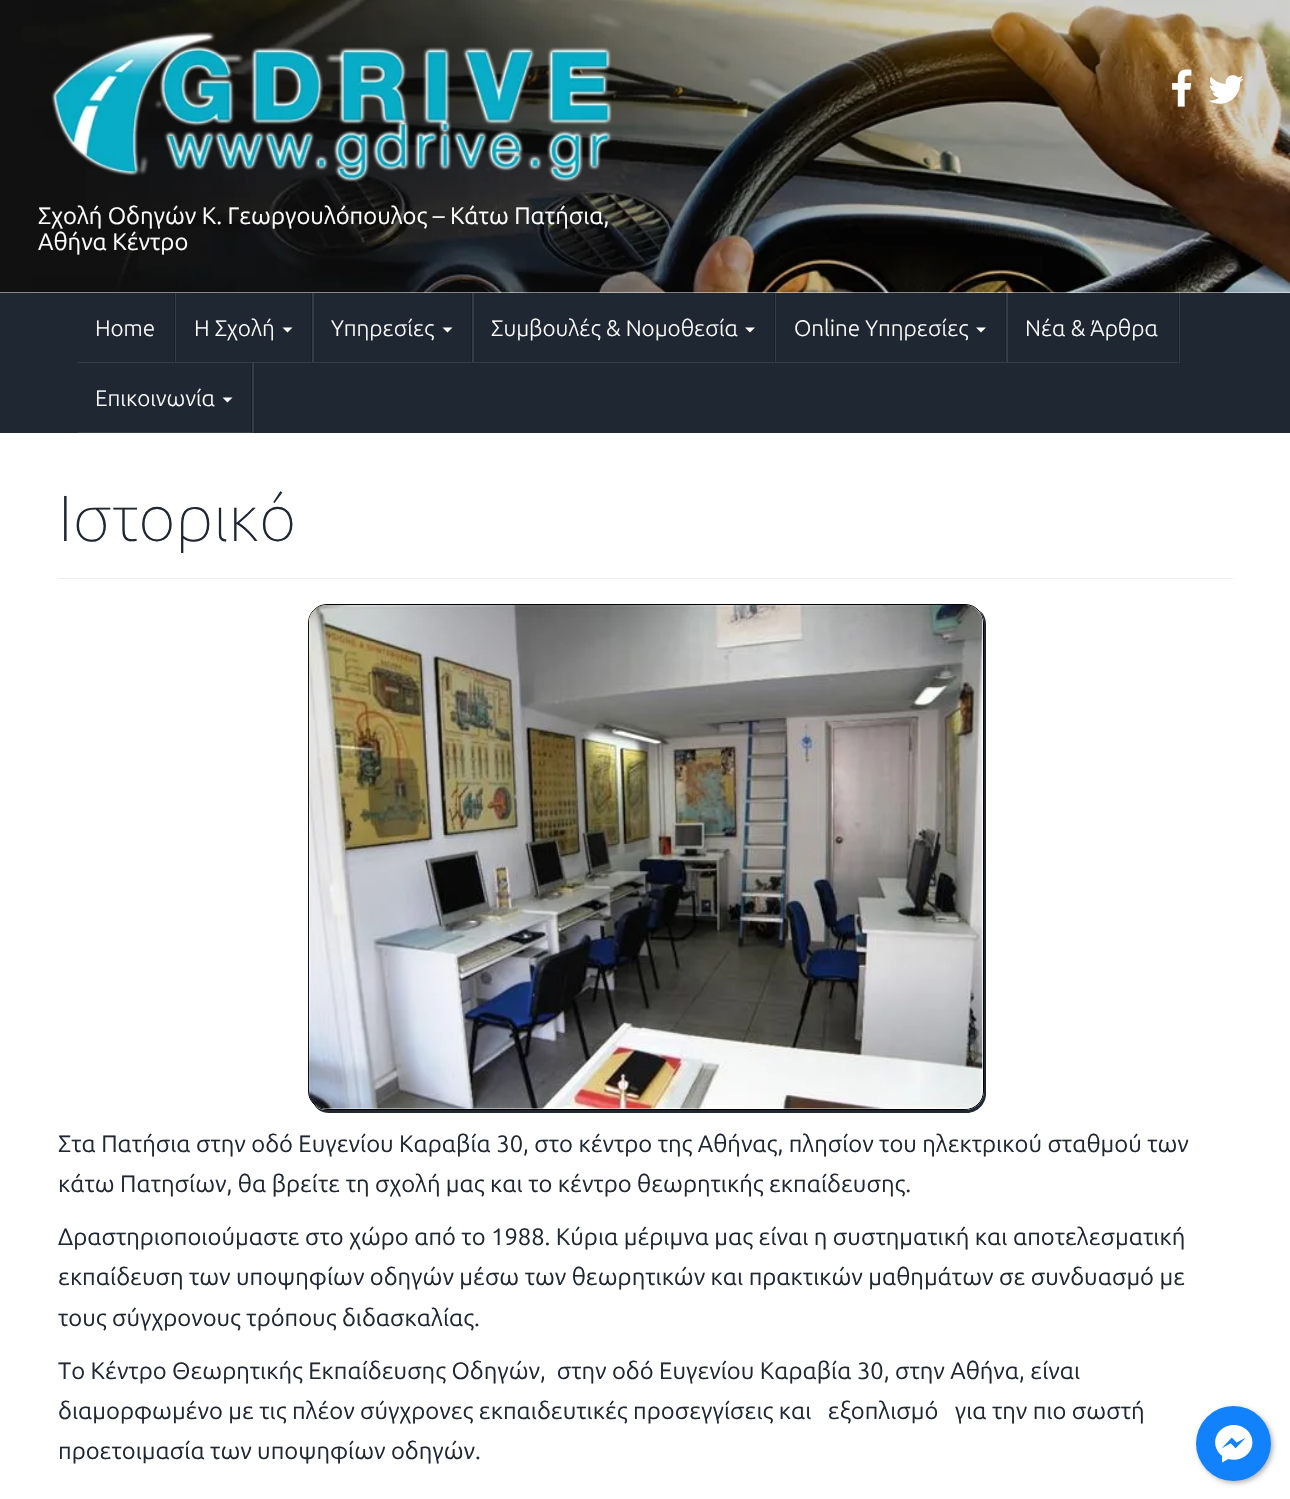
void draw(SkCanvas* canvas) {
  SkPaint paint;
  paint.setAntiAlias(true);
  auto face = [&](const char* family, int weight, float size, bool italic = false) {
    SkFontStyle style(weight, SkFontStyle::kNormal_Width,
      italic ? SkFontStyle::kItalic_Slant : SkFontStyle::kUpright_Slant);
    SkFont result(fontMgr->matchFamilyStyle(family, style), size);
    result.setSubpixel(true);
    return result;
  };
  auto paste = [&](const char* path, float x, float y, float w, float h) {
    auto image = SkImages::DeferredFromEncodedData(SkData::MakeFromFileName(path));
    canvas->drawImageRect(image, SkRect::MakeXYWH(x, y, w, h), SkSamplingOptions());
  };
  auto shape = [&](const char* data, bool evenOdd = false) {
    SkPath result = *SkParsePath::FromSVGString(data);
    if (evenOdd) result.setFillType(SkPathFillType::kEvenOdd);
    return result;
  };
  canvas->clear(0xffffffff);
  paste("img/1.png", 0, 0, 1290, 293);
  paste("img/2.png", 1172, 69, 20, 38);
  paste("img/3.png", 1208, 75, 36, 29);
  paste("img/4.png", 51, 32, 561, 150);
  paint.setColor(0xff1f2732);
  canvas->drawRect(SkRect::MakeXYWH(0, 293, 1290, 140), paint);
  paint.setColor(0xff353d47);
  canvas->drawPath(shape("M78 362V363H176V293H175V362Z"), paint);
  paint.setColor(0x33000000);
  canvas->drawRect(SkRect::MakeXYWH(174, 293, 1, 70), paint);
  paint.setColor(0xff353d47);
  canvas->drawPath(shape("M176 362V363H314V293H312V362Z"), paint);
  paint.setColor(0x33000000);
  canvas->drawRect(SkRect::MakeXYWH(311, 293, 1, 70), paint);
  paint.setColor(0xffffffff);
  canvas->drawPath(shape("M282.5 327.5H292.5L287.5 332.5Z"), paint);
  paint.setColor(0xff353d47);
  canvas->drawPath(shape("M314 362V363H474V293H472V362Z"), paint);
  paint.setColor(0x33000000);
  canvas->drawRect(SkRect::MakeXYWH(471, 293, 1, 70), paint);
  paint.setColor(0xffffffff);
  canvas->drawPath(shape("M442.5 327.5H452.5L447.5 332.5Z"), paint);
  paint.setColor(0xff353d47);
  canvas->drawPath(shape("M474 362V363H776V293H775V362Z"), paint);
  paint.setColor(0x33000000);
  canvas->drawRect(SkRect::MakeXYWH(774, 293, 1, 70), paint);
  paint.setColor(0xffffffff);
  canvas->drawPath(shape("M745 327.5H755L750 332.5Z"), paint);
  paint.setColor(0xff353d47);
  canvas->drawPath(shape("M776 362V363H1008V293H1006V362Z"), paint);
  paint.setColor(0x33000000);
  canvas->drawRect(SkRect::MakeXYWH(1005, 293, 1, 70), paint);
  paint.setColor(0xffffffff);
  canvas->drawPath(shape("M976 327.5H986L981 332.5Z"), paint);
  paint.setColor(0xff353d47);
  canvas->drawPath(shape("M1008 362V363H1180V293H1179V362Z"), paint);
  paint.setColor(0x33000000);
  canvas->drawRect(SkRect::MakeXYWH(1178, 293, 1, 70), paint);
  paint.setColor(0xff353d47);
  canvas->drawPath(shape("M78 432V433H254V363H252V432Z"), paint);
  paint.setColor(0x33000000);
  canvas->drawRect(SkRect::MakeXYWH(251, 363, 1, 70), paint);
  paint.setColor(0xffffffff);
  canvas->drawPath(shape("M222.5 397.5H232.5L227.5 402.5Z"), paint);
  paint.setColor(0xffeeeeee);
  canvas->drawRect(SkRect::MakeXYWH(58, 578, 1175, 1), paint);
  paint.setColor(0xff1f2732);
  canvas->drawPath(shape("M314 1105C317 1110 323 1113 329 1113H967C977 1113 986 1104 986 1094V625C986 619 984 614 980 611C982 614 984 618 984 622V1091C984 1102 975 1110 965 1110H326C321 1110 317 1108 314 1105Z"), paint);
  paint.setStroke(true);
  paint.setStrokeWidth(1);
  paint.setColor(0xff000000);
  canvas->drawRoundRect(SkRect::MakeXYWH(308.5f, 604.5f, 675, 505), 18.5f, 18.5f, paint);
  paste("img/5.png", 308, 605, 675, 504);
  paint.setStroke(false);
  paint.setColor(0x4d000000);
  paint.setMaskFilter(SkMaskFilter::MakeBlur(kNormal_SkBlurStyle, 2.5f));
  canvas->drawRoundRect(SkRect::MakeXYWH(1198, 1408, 75, 75), 37.5f, 37.5f, paint);
  paint.setMaskFilter(nullptr);
  paint.setColor(0xff1182fc);
  canvas->drawCircle(1233.5f, 1443.5f, 37.5f, paint);
  paste("img/6.png", 1215, 1425, 38, 38);
  auto f0 = face("Ubuntu", 400, 23.75f);
  paint.setColor(0xffffffff);
  canvas->drawString("Σχολή Οδηγών Κ. Γεωργουλόπουλος – Κάτω Πατήσια,", 38, 224, f0, paint);
  canvas->drawString("Αθήνα Κέντρο", 38, 250, f0, paint);
  auto f1 = face("Ubuntu", 300, 22.5f);
  {
    const struct { const char* s; float x, y; } items[] = {
      {"Home", 95, 336},
      {"Η Σχολή", 194, 336},
      {"Υπηρεσίες", 331, 336},
      {"Συμβουλές & Νομοθεσία", 491, 336},
      {"Online Υπηρεσίες", 794, 336},
      {"Νέα & Άρθρα", 1025, 336},
      {"Επικοινωνία", 95, 406},
    };
    for (auto [s, x, y] : items) {
      canvas->drawString(s, x, y, f1, paint);
    }
  }
  auto f2 = face("Ubuntu", 100, 65);
  paint.setColor(0xff1f2732);
  canvas->drawString("Ιστορικό", 58, 541, f2, paint);
  {
    const struct { const char* s; float x, y; } items[] = {
      {"Στα Πατήσια στην οδό Ευγενίου Καραβία 30, στο κέντρο της Αθήνας, πλησίον του ηλεκτρικού σταθμού των", 58, 1152},
      {"κάτω Πατησίων, θα βρείτε τη σχολή μας και το κέντρο θεωρητικής εκπαίδευσης.", 58, 1192},
      {"Δραστηριοποιούμαστε στο χώρο από το 1988. Κύρια μέριμνα μας είναι η συστηματική και αποτελεσματική", 58, 1245},
      {"εκπαίδευση των υποψηφίων οδηγών μέσω των θεωρητικών και πρακτικών μαθημάτων σε συνδυασμό με", 58, 1285},
      {"τους σύγχρονους τρόπους διδασκαλίας.", 58, 1326},
      {"Τo Κέντρο Θεωρητικής Εκπαίδευσης Οδηγών,  στην οδό Ευγενίου Καραβία 30, στην Αθήνα, είναι", 58, 1379},
      {"διαμορφωμένο με τις πλέον σύγχρονες εκπαιδευτικές προσεγγίσεις και   εξοπλισμό   για την πιο σωστή", 58, 1419},
      {"προετοιμασία των υποψηφίων οδηγών.", 58, 1459},
    };
    for (auto [s, x, y] : items) {
      canvas->drawString(s, x, y, f0, paint);
    }
  }
}
